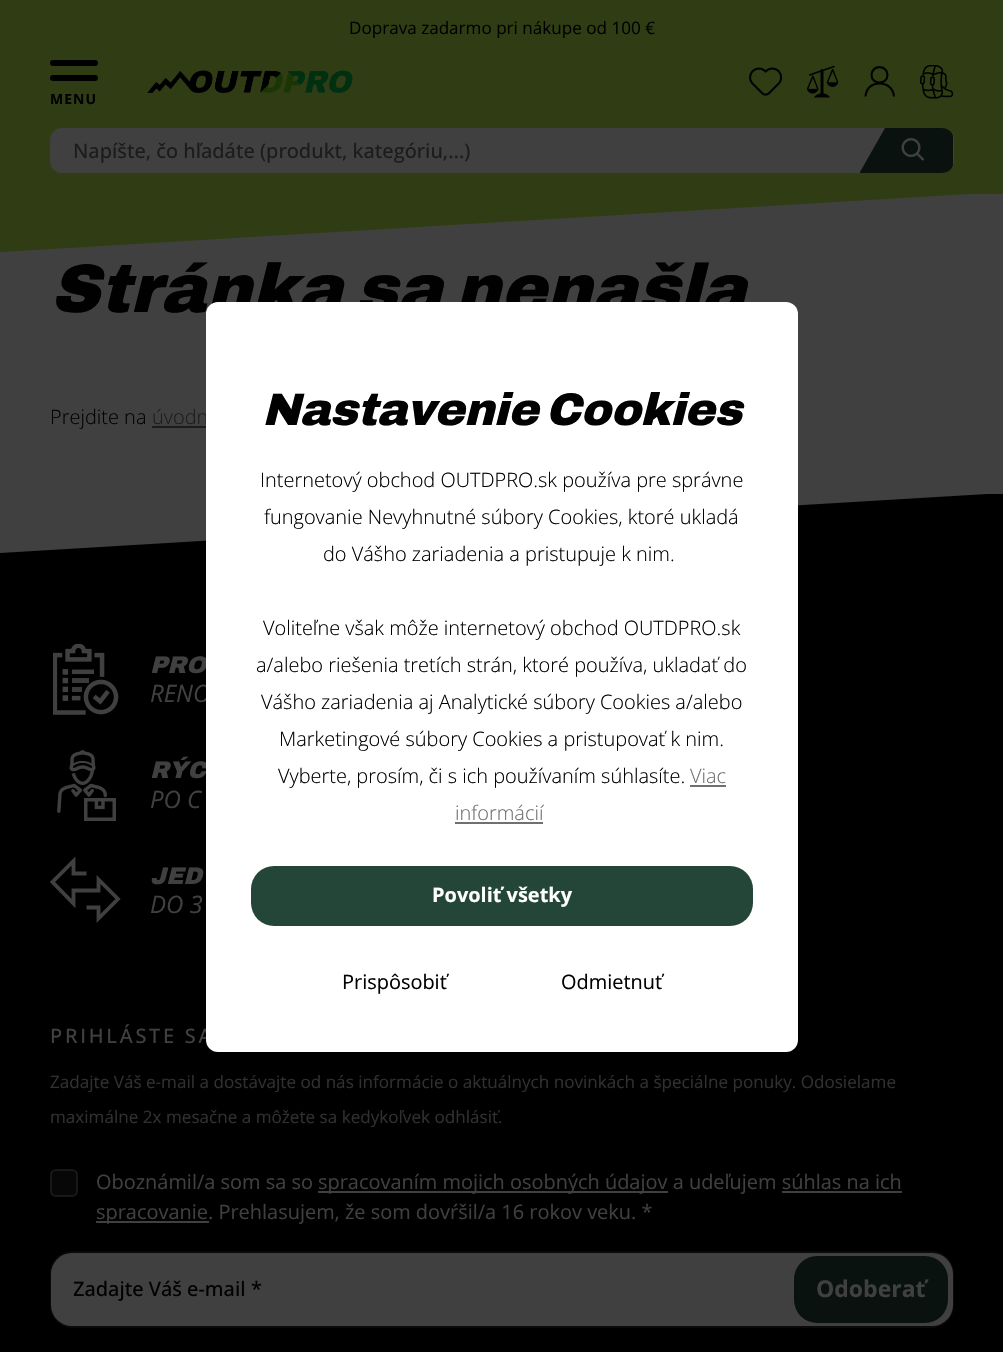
void draw(SkCanvas* canvas) {
  SkPaint paint;
  paint.setAntiAlias(true);
  auto face = [&](const char* family, int weight, float size, bool italic = false) {
    SkFontStyle style(weight, SkFontStyle::kNormal_Width,
      italic ? SkFontStyle::kItalic_Slant : SkFontStyle::kUpright_Slant);
    SkFont result(fontMgr->matchFamilyStyle(family, style), size);
    result.setSubpixel(true);
    return result;
  };
  auto writeSpaced = [&](const char* s, float x, float y, const SkFont& font, const SkPaint& ink, float letter, float word) {
    std::vector<SkGlyphID> glyphs(font.countText(s, strlen(s), SkTextEncoding::kUTF8));
    std::vector<float> xs(glyphs.size());
    font.textToGlyphs(s, strlen(s), SkTextEncoding::kUTF8, glyphs);
    font.getXPos(glyphs, xs, x);
    float extra = 0;
    for (size_t i = 0; i < glyphs.size(); i++) {
      xs[i] += extra;
      extra += letter + word * (glyphs[i] == font.unicharToGlyph(' '));
    }
    canvas->drawTextBlob(SkTextBlob::MakeFromPosHGlyphs(glyphs, xs, y, font), 0, 0, ink);
  };
  auto paste = [&](const char* path, float x, float y, float w, float h) {
    auto image = SkImages::DeferredFromEncodedData(SkData::MakeFromFileName(path));
    canvas->drawImageRect(image, SkRect::MakeXYWH(x, y, w, h), SkSamplingOptions());
  };
  auto shape = [&](const char* data, bool evenOdd = false) {
    SkPath result = *SkParsePath::FromSVGString(data);
    if (evenOdd) result.setFillType(SkPathFillType::kEvenOdd);
    return result;
  };
  canvas->clear(0xff404040);
  paint.setColor(0xff2f3c14);
  canvas->drawRect(SkRect::MakeXYWH(0, 0, 1003, 194), paint);
  paste("img/1.png", 147, 70, 206, 23);
  paint.setColor(0xff010101);
  canvas->drawRoundRect(SkRect::MakeXYWH(50, 60, 48, 6), 3, 3, paint);
  canvas->drawRoundRect(SkRect::MakeXYWH(50, 75, 48, 6), 3, 3, paint);
  paste("img/2.png", 749, 67, 34, 29);
  paste("img/3.png", 807, 65, 32, 33);
  paint.setStroke(true);
  paint.setStrokeWidth(2.1f);
  canvas->drawPath(shape("M887.5 75C887.5 85 871.5 85 871.5 75C871.5 64.5 887.5 64.5 887.5 75ZM894 96.5C892.5 79 866.5 79 865.5 96.5"), paint);
  paste("img/4.png", 920, 65, 34, 34);
  paint.setStroke(false);
  paint.setColor(0xff404040);
  canvas->drawRoundRect(SkRect::MakeXYWH(50, 128, 904, 45), 12, 12, paint);
  paint.setColor(0xff09120e);
  canvas->drawPath(shape("M860 172L885 128H942C947 128 952 131 953 136V165C952 170 947 173 942 173H860Z"), paint);
  paste("img/5.png", 901, 138, 23, 23);
  paint.setColor(0xff2f3c14);
  canvas->drawPath(shape("M0 192V252H2L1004 192Z"), paint);
  paint.setColor(0xff1c1c1c);
  canvas->drawRect(SkRect::MakeXYWH(152, 426, 54, 2), paint);
  paint.setColor(0xff000000);
  canvas->drawPath(shape("M0 553V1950H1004V494H987Z"), paint);
  paste("img/6.png", 53, 644, 66, 71);
  paste("img/7.png", 57, 750, 59, 71);
  paint.setStroke(true);
  paint.setStrokeWidth(3.8f);
  paint.setColor(0xff404040);
  canvas->drawPath(shape("M86.5 873.5H73.5V861L52.5 882L73.5 903.5V890.5H98.5V879.5L118 899L98.5 918.5V907.5H86.5"), paint);
  paint.setStroke(false);
  paint.setColor(0xff070707);
  canvas->drawRoundRect(SkRect::MakeXYWH(50, 1169, 28, 28), 6, 6, paint);
  paint.setStroke(true);
  paint.setStrokeWidth(2);
  paint.setColor(0x4d404040);
  canvas->drawRoundRect(SkRect::MakeXYWH(51, 1170, 26, 26), 5, 5, paint);
  paint.setStroke(false);
  {
    const struct { float x, y, w, h; SkColor color; } items[] = {
      {318, 1191, 350, 2, 0xff404040},
      {782, 1191, 120, 2, 0xff404040},
      {96, 1221, 113, 2, 0xff404040},
    };
    for (auto [x, y, w, h, color] : items) {
      paint.setColor(color);
      canvas->drawRect(SkRect::MakeXYWH(x, y, w, h), paint);
    }
  }
  canvas->drawRoundRect(SkRect::MakeXYWH(51, 1253, 902, 73), 21, 21, paint);
  paint.setStroke(true);
  paint.setColor(0x26404040);
  canvas->drawRoundRect(SkRect::MakeXYWH(51, 1252, 902, 75), 22, 22, paint);
  paint.setStroke(false);
  paint.setColor(0xff09120e);
  canvas->drawRoundRect(SkRect::MakeXYWH(794, 1256, 154, 67), 23, 23, paint);
  auto f0 = face("Open Sans", 400, 17.1f);
  paint.setColor(0xff010101);
  canvas->drawString("Doprava zadarmo pri nákupe od 100 €", 349, 34, f0, paint);
  auto f1 = face("Open Sans", 700, 14);
  writeSpaced("MENU", 50, 104, f1, paint, 1, 0);
  auto f2 = face("Open Sans", 500, 19.95f);
  paint.setColor(0xff1c1c1c);
  canvas->drawString("Napíšte, čo hľadáte (produkt, kategóriu,...)", 73, 158, f2, paint);
  auto f3 = face("Archivo", 900, 68.4f, true);
  paint.setColor(0xff010101);
  canvas->drawString("Stránka sa nenašla", 50, 312, f3, paint);
  auto f4 = face("Open Sans", 300, 19.95f);
  canvas->drawString("Prejdite na", 50, 424, f4, paint);
  paint.setColor(0xff1c1c1c);
  canvas->drawString("úvodn", 152, 424, f4, paint);
  auto f5 = face("Archivo", 900, 24, true);
  paint.setColor(0xff404040);
  canvas->drawString("PRO", 150, 673, f5, paint);
  auto f6 = face("Open Sans", 400, 24, true);
  canvas->drawString("RENO", 150, 702, f6, paint);
  canvas->drawString("RÝC", 150, 778, f5, paint);
  canvas->drawString("PO C", 150, 808, f6, paint);
  canvas->drawString("JED", 150, 884, f5, paint);
  canvas->drawString("DO 3", 150, 913, f6, paint);
  writeSpaced("PRIHLÁSTE SA", 50, 1043, f2, paint, 2.75f, 0);
  paint.setColor(0xff303030);
  canvas->drawString("Zadajte Váš e-mail a dostávajte od nás informácie o aktuálnych novinkách a špeciálne ponuky. Odosielame", 50, 1088, f0, paint);
  canvas->drawString("maximálne 2x mesačne a môžete sa kedykoľvek odhlásiť.", 50, 1123, f0, paint);
  auto f7 = face("Open Sans", 400, 19.95f);
  paint.setColor(0xff404040);
  {
    const struct { const char* s; float x, y; } items[] = {
      {"Oboznámil/a som sa so", 96, 1189},
      {"spracovaním mojich osobných údajov a udeľujem súhlas na ich", 318, 1189},
      {"spracovanie. Prehlasujem, že som dovŕšil/a 16 rokov veku. *", 96, 1219},
    };
    for (auto [s, x, y] : items) {
      canvas->drawString(s, x, y, f7, paint);
    }
  }
  canvas->save();
  canvas->clipRect(SkRect::MakeXYWH(74, 1269, 856, 41));
  paint.setColor(0xff010101);
  canvas->drawString("Zadajte Váš e-mail", 73, 1296, f2, paint);
  canvas->restore();
  canvas->drawString("*", 251, 1296, f2, paint);
  auto f8 = face("Open Sans", 700, 23);
  paint.setColor(0xff404040);
  canvas->drawString("Odoberať", 816, 1297, f8, paint);
  paint.setColor(0xffffffff);
  canvas->drawRoundRect(SkRect::MakeXYWH(206, 302, 592, 750), 12, 12, paint);
  auto f9 = face("Archivo", 900, 45.6f, true);
  paint.setColor(0xff010101);
  writeSpaced("Nastavenie Cookies", 262, 425, f9, paint, -0.5f, 0);
  {
    const struct { const char* s; float x, y; } items[] = {
      {"Internetový obchod OUTDPRO.sk používa pre správne", 260, 487},
      {"fungovanie Nevyhnutné súbory Cookies, ktoré ukladá", 264, 524},
      {"do Vášho zariadenia a pristupuje k nim.", 323, 561},
      {"Voliteľne však môže internetový obchod OUTDPRO.sk", 263, 635},
      {"a/alebo riešenia tretích strán, ktoré používa, ukladať do", 256, 672},
      {"Vášho zariadenia aj Analytické súbory Cookies a/alebo", 261, 709},
      {"Marketingové súbory Cookies a pristupovať k nim.", 279, 746},
      {"Vyberte, prosím, či s ich používaním súhlasíte.", 278, 783},
    };
    for (auto [s, x, y] : items) {
      canvas->drawString(s, x, y, f4, paint);
    }
  }
  paint.setColor(0xff6f7071);
  canvas->drawString("Viac", 690, 783, f4, paint);
  canvas->drawRect(SkRect::MakeXYWH(690, 785, 36, 2), paint);
  canvas->drawString("informácií", 455, 820, f4, paint);
  canvas->drawRect(SkRect::MakeXYWH(455, 822, 88, 2), paint);
  paint.setColor(0xff244638);
  canvas->drawRoundRect(SkRect::MakeXYWH(251, 866, 502, 60), 23, 23, paint);
  auto f10 = face("Open Sans", 700, 19.95f);
  paint.setColor(0xffffffff);
  canvas->drawString("Povoliť všetky", 432, 902, f10, paint);
  paint.setColor(0xff010101);
  canvas->drawString("Prispôsobiť", 342, 989, f7, paint);
  canvas->drawString("Odmietnuť", 561, 989, f7, paint);
}
